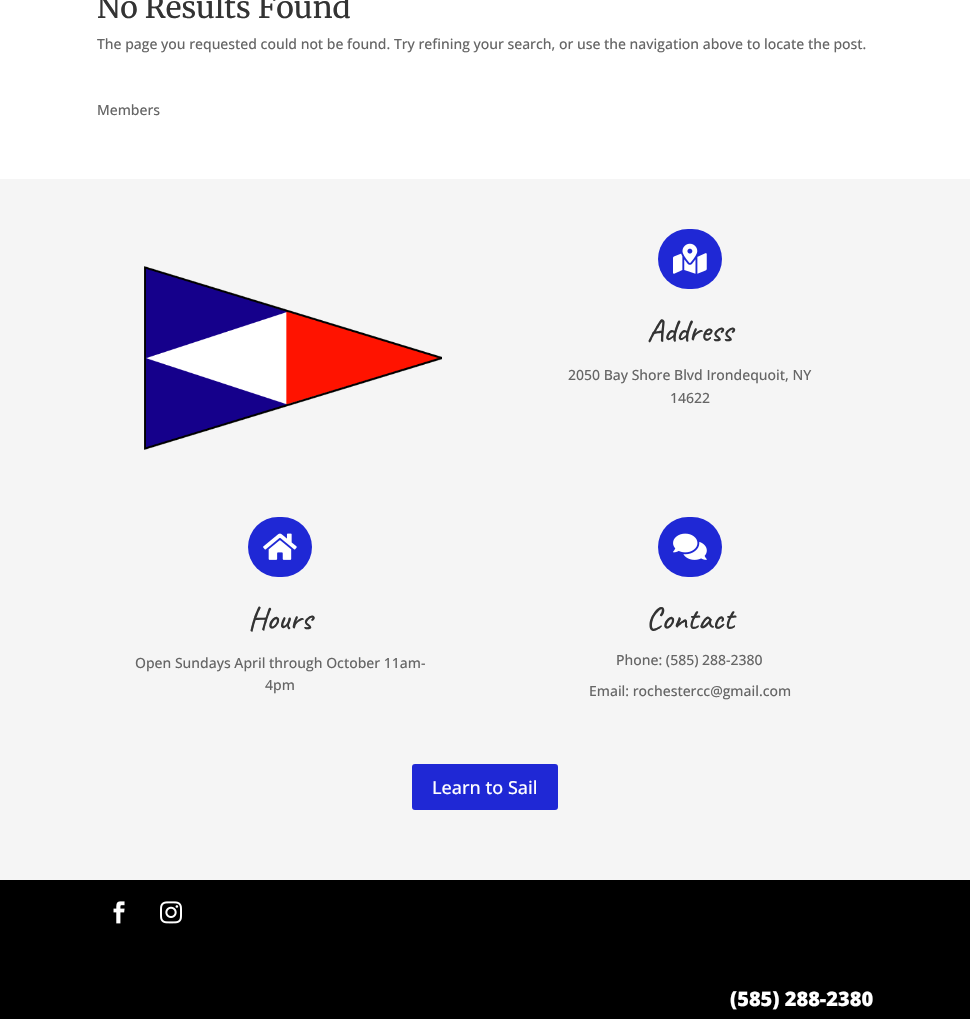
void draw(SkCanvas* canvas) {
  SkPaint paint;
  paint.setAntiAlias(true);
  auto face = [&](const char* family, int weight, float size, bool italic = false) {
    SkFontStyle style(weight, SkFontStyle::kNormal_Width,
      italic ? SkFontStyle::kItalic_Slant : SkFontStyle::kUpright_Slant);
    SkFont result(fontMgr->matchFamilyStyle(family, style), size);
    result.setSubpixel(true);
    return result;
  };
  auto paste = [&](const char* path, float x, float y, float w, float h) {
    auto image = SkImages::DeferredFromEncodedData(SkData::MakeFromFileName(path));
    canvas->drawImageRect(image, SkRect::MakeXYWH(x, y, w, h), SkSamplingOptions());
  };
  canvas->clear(0xffffffff);
  paint.setColor(0xfff5f5f5);
  canvas->drawRect(SkRect::MakeXYWH(0, 179, 970, 701), paint);
  paste("img/1.png", 144, 266, 298, 184);
  paint.setColor(0xff1f28d5);
  canvas->drawRoundRect(SkRect::MakeXYWH(658, 229, 64, 60), 30, 30, paint);
  paste("img/2.png", 673, 243, 34, 31);
  canvas->drawRoundRect(SkRect::MakeXYWH(248, 517, 64, 60), 30, 30, paint);
  paste("img/3.png", 263, 533, 34, 27);
  canvas->drawRoundRect(SkRect::MakeXYWH(658, 517, 64, 60), 30, 30, paint);
  paste("img/4.png", 673, 533, 34, 27);
  canvas->drawRoundRect(SkRect::MakeXYWH(413, 765, 144, 44), 2, 2, paint);
  paint.setStroke(true);
  paint.setStrokeWidth(2);
  canvas->drawRoundRect(SkRect::MakeXYWH(413, 765, 144, 44), 2, 2, paint);
  paint.setStroke(false);
  paint.setColor(0xff000000);
  canvas->drawRect(SkRect::MakeXYWH(0, 880, 970, 139), paint);
  paste("img/5.png", 113, 901, 12, 23);
  paste("img/6.png", 160, 901, 22, 23);
  auto f0 = face("Merriweather", 400, 30);
  paint.setColor(0xff333333);
  canvas->drawString("No Results Found", 97, 18, f0, paint);
  auto f1 = face("Open Sans", 500, 14);
  paint.setColor(0xff666666);
  canvas->drawString("The page you requested could not be found. Try refining your search, or use the navigation above to locate the post.", 97, 49, f1, paint);
  canvas->drawString("Members", 97, 115, f1, paint);
  auto f2 = face("Caveat", 500, 32);
  paint.setColor(0xff333333);
  canvas->drawString("Address", 647, 341, f2, paint);
  paint.setColor(0xff666666);
  canvas->drawString("2050 Bay Shore Blvd Irondequoit, NY", 568, 380, f1, paint);
  canvas->drawString("14622", 670, 403, f1, paint);
  paint.setColor(0xff333333);
  canvas->drawString("Hours", 248, 629, f2, paint);
  paint.setColor(0xff666666);
  canvas->drawString("Open Sundays April through October 11am-", 135, 668, f1, paint);
  canvas->drawString("4pm", 265, 690, f1, paint);
  paint.setColor(0xff333333);
  canvas->drawString("Contact", 646, 629, f2, paint);
  paint.setColor(0xff666666);
  canvas->drawString("Phone: (585) 288-2380", 616, 665, f1, paint);
  canvas->drawString("Email: rochestercc@gmail.com", 589, 696, f1, paint);
  auto f3 = face("Open Sans", 500, 18);
  paint.setColor(0xffffffff);
  canvas->drawString("Learn to Sail", 432, 794, f3, paint);
  auto f4 = face("Open Sans", 800, 20);
  canvas->drawString("(585) 288-2380", 730, 1006, f4, paint);
}
